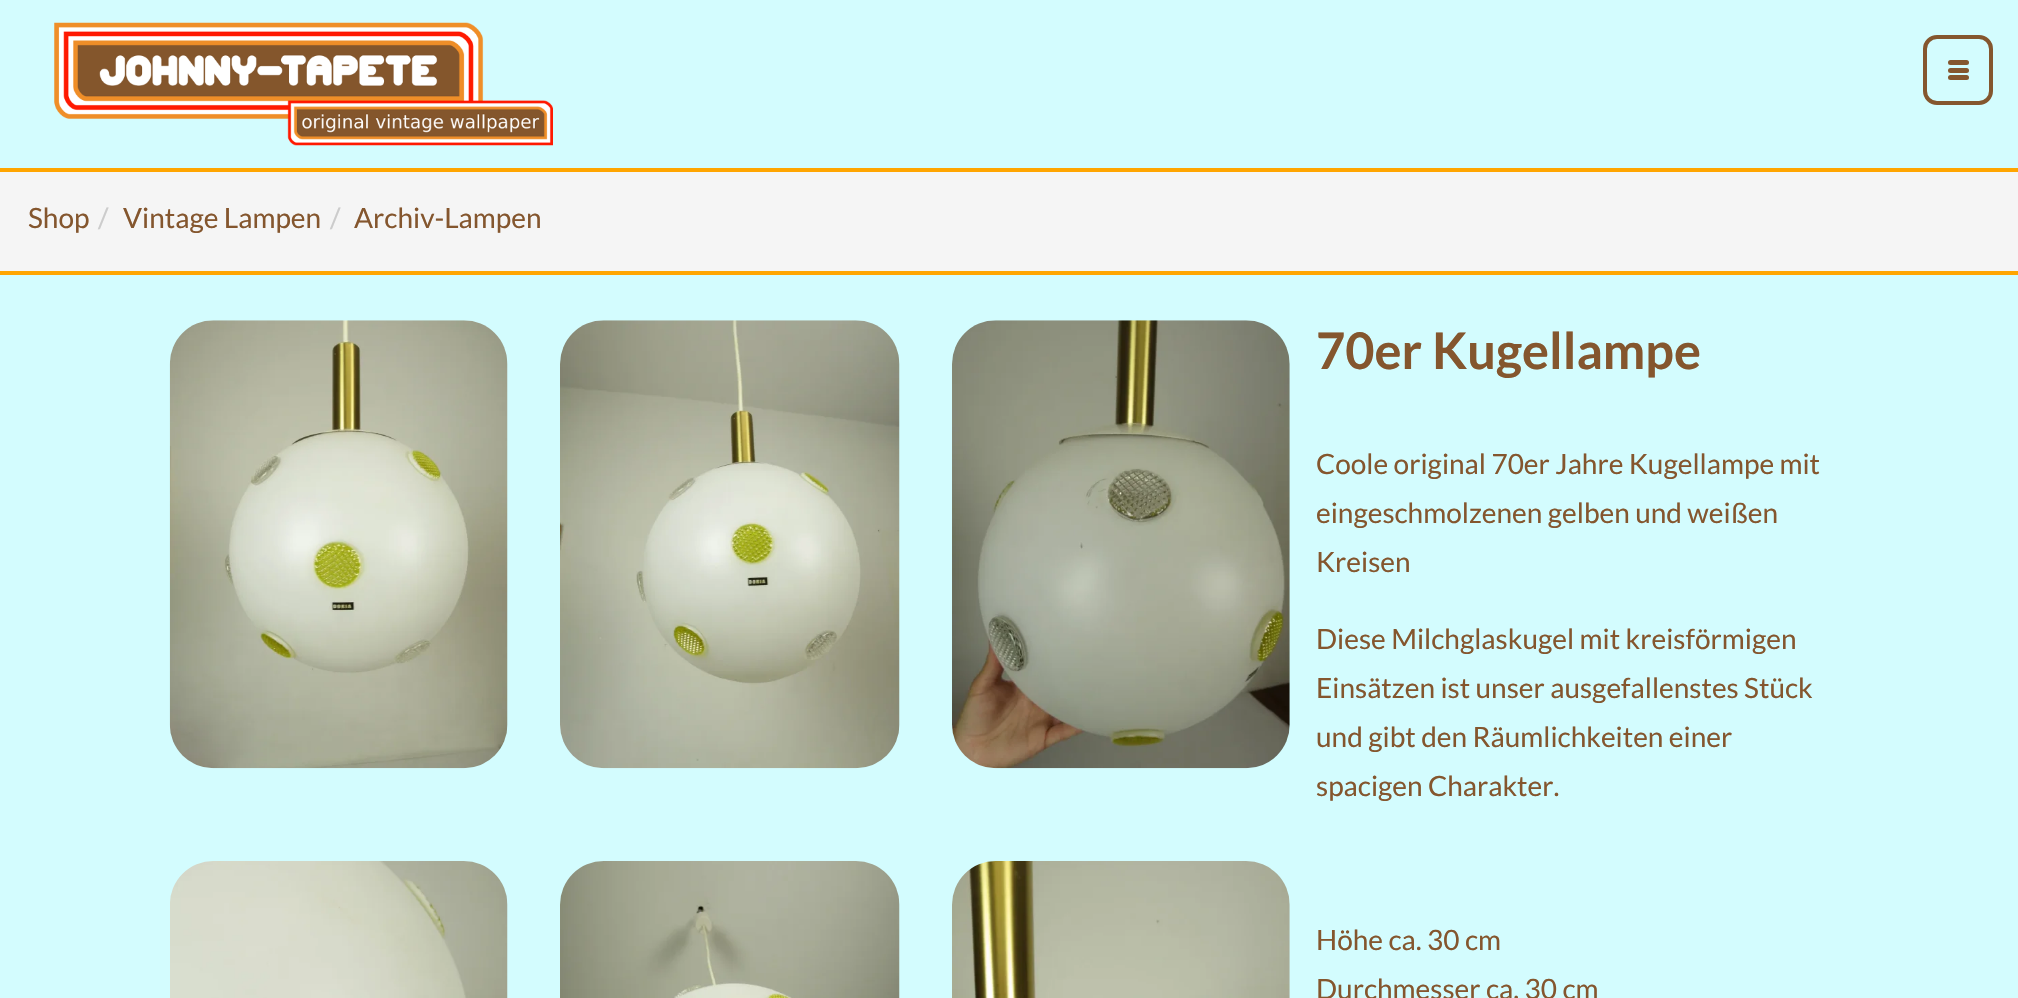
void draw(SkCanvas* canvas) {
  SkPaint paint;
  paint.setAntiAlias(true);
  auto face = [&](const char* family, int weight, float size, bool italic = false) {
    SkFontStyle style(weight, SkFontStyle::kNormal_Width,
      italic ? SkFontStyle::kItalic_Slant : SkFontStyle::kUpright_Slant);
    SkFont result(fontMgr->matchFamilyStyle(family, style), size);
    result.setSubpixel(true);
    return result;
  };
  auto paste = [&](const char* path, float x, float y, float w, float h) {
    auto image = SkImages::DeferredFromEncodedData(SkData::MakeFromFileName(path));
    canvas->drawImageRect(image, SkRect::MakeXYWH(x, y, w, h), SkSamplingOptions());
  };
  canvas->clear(0xffd3fcfe);
  paste("img/1.png", 54, 22, 499, 124);
  paint.setStroke(true);
  paint.setStrokeWidth(4);
  paint.setColor(0xff84562e);
  canvas->drawRoundRect(SkRect::MakeXYWH(1925, 37, 66, 66), 12, 12, paint);
  paint.setStroke(false);
  canvas->drawRoundRect(SkRect::MakeXYWH(1948, 60, 21, 5), 2.5f, 2.5f, paint);
  canvas->drawRoundRect(SkRect::MakeXYWH(1948, 68, 21, 5), 2.5f, 2.5f, paint);
  canvas->drawRoundRect(SkRect::MakeXYWH(1948, 75, 21, 5), 2.5f, 2.5f, paint);
  {
    const struct { float x, y, w, h; SkColor color; } items[] = {
      {0, 172, 2018, 99, 0xfff5f5f5},
      {0, 168, 2018, 4, 0xffffa500},
      {0, 271, 2018, 4, 0xffffa500},
    };
    for (auto [x, y, w, h, color] : items) {
      paint.setColor(color);
      canvas->drawRect(SkRect::MakeXYWH(x, y, w, h), paint);
    }
  }
  paste("img/2.png", 169, 320, 339, 449);
  paste("img/3.png", 560, 320, 340, 449);
  paste("img/4.png", 952, 320, 338, 449);
  paste("img/5.png", 170, 861, 338, 137);
  paste("img/6.png", 560, 861, 340, 137);
  paste("img/7.png", 952, 861, 338, 137);
  auto f0 = face("Lato", 400, 28);
  paint.setColor(0xff84562e);
  canvas->drawString("Shop", 28, 228, f0, paint);
  paint.setColor(0xffcccccc);
  canvas->drawString("/", 98, 228, f0, paint);
  paint.setColor(0xff84562e);
  canvas->drawString("Vintage Lampen", 123, 228, f0, paint);
  paint.setColor(0xffcccccc);
  canvas->drawString("/", 330, 228, f0, paint);
  paint.setColor(0xff84562e);
  canvas->drawString("Archiv-Lampen", 354, 228, f0, paint);
  auto f1 = face("Lato", 700, 50.5f);
  canvas->drawString("70er Kugellampe", 1316, 369, f1, paint);
  {
    const struct { const char* s; float x, y; } items[] = {
      {"Coole original 70er Jahre Kugellampe mit", 1316, 474},
      {"eingeschmolzenen gelben und weißen", 1316, 523},
      {"Kreisen", 1316, 572},
      {"Diese Milchglaskugel mit kreisförmigen", 1316, 649},
      {"Einsätzen ist unser ausgefallenstes Stück", 1316, 698},
      {"und gibt den Räumlichkeiten einer", 1316, 747},
      {"spacigen Charakter.", 1316, 796},
      {"Höhe ca. 30 cm", 1316, 950},
      {"Durchmesser ca. 30 cm", 1316, 999},
    };
    for (auto [s, x, y] : items) {
      canvas->drawString(s, x, y, f0, paint);
    }
  }
}
